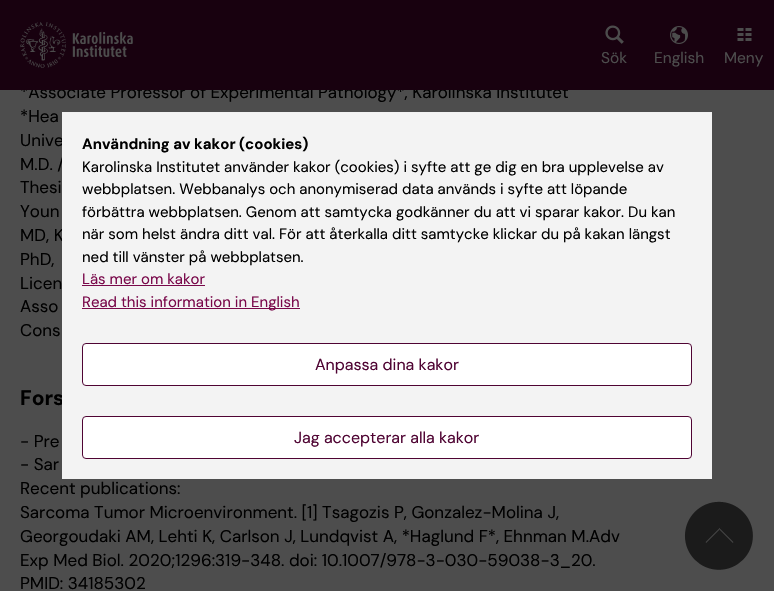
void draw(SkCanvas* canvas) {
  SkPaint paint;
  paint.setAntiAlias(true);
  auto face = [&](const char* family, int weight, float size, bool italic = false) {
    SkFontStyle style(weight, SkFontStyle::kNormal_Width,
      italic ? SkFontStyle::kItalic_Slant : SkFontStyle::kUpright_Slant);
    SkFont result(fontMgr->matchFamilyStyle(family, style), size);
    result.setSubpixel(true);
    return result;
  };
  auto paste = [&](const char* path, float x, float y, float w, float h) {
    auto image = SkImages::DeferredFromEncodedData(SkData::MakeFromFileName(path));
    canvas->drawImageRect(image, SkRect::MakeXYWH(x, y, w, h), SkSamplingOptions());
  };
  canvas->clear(0xff4d4d4d);
  paint.setColor(0xfff1f1f1);
  canvas->drawRect(SkRect::MakeXYWH(62, 112, 650, 1), paint);
  paste("img/5.png", 684, 501, 69, 69);
  auto f0 = face("DM Sans", 400, 17);
  paint.setColor(0xff000000);
  canvas->drawString("*Associate Professor of Experimental Pathology*, Karolinska Institutet", 20, 98, f0, paint);
  paint.setColor(0xff18010f);
  canvas->drawRect(SkRect::MakeXYWH(0, 0, 774, 90), paint);
  auto f1 = face("DM Sans", 400, 15.5f);
  paint.setColor(0xff4d4d4d);
  canvas->drawString("Meny", 724, 63, f1, paint);
  paste("img/4.png", 737, 28, 15, 13);
  canvas->drawString("English", 654, 63, f1, paint);
  paste("img/3.png", 670, 26, 18, 18);
  canvas->drawString("Sök", 601, 63, f1, paint);
  paste("img/2.png", 605, 25, 19, 19);
  paste("img/1.png", 20, 22, 113, 46);
  paint.setColor(0xff000000);
  {
    const struct { const char* s; float x, y; } items[] = {
      {"*Hea", 20, 122},
      {"Unive", 20, 146},
      {"M.D. /", 20, 170},
      {"Thesi", 20, 193},
      {"Youn", 20, 217},
      {"MD, K", 20, 241},
      {"PhD,", 20, 265},
      {"Licen", 20, 289},
      {"Asso", 20, 312},
      {"Cons", 20, 336},
    };
    for (auto [s, x, y] : items) {
      canvas->drawString(s, x, y, f0, paint);
    }
  }
  auto f2 = face("DM Sans", 700, 21);
  canvas->drawString("Fors", 20, 405, f2, paint);
  {
    const struct { const char* s; float x, y; } items[] = {
      {"- Pre", 20, 447},
      {"- Sar", 20, 470},
      {"Recent publications:", 20, 494},
      {"Sarcoma Tumor Microenvironment. [1] Tsagozis P, Gonzalez-Molina J,", 20, 518},
      {"Georgoudaki AM, Lehti K, Carlson J, Lundqvist A, *Haglund F*, Ehnman M.Adv", 20, 542},
      {"Exp Med Biol. 2020;1296:319-348. doi: 10.1007/978-3-030-59038-3_20.", 20, 566},
      {"PMID: 34185302", 20, 589},
    };
    for (auto [s, x, y] : items) {
      canvas->drawString(s, x, y, f0, paint);
    }
  }
  paint.setColor(0xfff3f3f3);
  canvas->drawRect(SkRect::MakeXYWH(62, 113, 650, 366), paint);
  auto f3 = face("DM Sans", 700, 15);
  paint.setColor(0xff000000);
  canvas->drawString("Användning av kakor (cookies)", 82, 149, f3, paint);
  auto f4 = face("DM Sans", 400, 15);
  {
    const struct { const char* s; float x, y; } items[] = {
      {"Karolinska Institutet använder kakor (cookies) i syfte att ge dig en bra upplevelse av", 82, 172},
      {"webbplatsen. Webbanalys och anonymiserad data används i syfte att löpande", 82, 194},
      {"förbättra webbplatsen. Genom att samtycka godkänner du att vi sparar kakor. Du kan", 82, 217},
      {"när som helst ändra ditt val. För att återkalla ditt samtycke klickar du på kakan längst", 82, 239},
      {"ned till vänster på webbplatsen.", 82, 262},
    };
    for (auto [s, x, y] : items) {
      canvas->drawString(s, x, y, f4, paint);
    }
  }
  paint.setColor(0xff79084a);
  canvas->drawString("Läs mer om kakor", 82, 284, f4, paint);
  canvas->drawRect(SkRect::MakeXYWH(82, 285, 123, 1), paint);
  canvas->drawRect(SkRect::MakeXYWH(82, 308, 218, 1), paint);
  canvas->drawString("Read this information in English", 82, 307, f4, paint);
  paint.setColor(0xffffffff);
  canvas->drawRoundRect(SkRect::MakeXYWH(82.5f, 343.5f, 609, 42), 3.5f, 3.5f, paint);
  paint.setStroke(true);
  paint.setStrokeWidth(1);
  paint.setColor(0xff4f0433);
  canvas->drawRoundRect(SkRect::MakeXYWH(82.5f, 343.5f, 609, 42), 3.5f, 3.5f, paint);
  auto f5 = face("DM Sans", 400, 16);
  paint.setStroke(false);
  canvas->drawString("Anpassa dina kakor", 315, 370, f5, paint);
  paint.setColor(0xffffffff);
  canvas->drawRoundRect(SkRect::MakeXYWH(82.5f, 416.5f, 609, 42), 3.5f, 3.5f, paint);
  paint.setStroke(true);
  paint.setColor(0xff4f0433);
  canvas->drawRoundRect(SkRect::MakeXYWH(82.5f, 416.5f, 609, 42), 3.5f, 3.5f, paint);
  paint.setStroke(false);
  canvas->drawString("Jag accepterar alla kakor", 294, 443, f5, paint);
}
